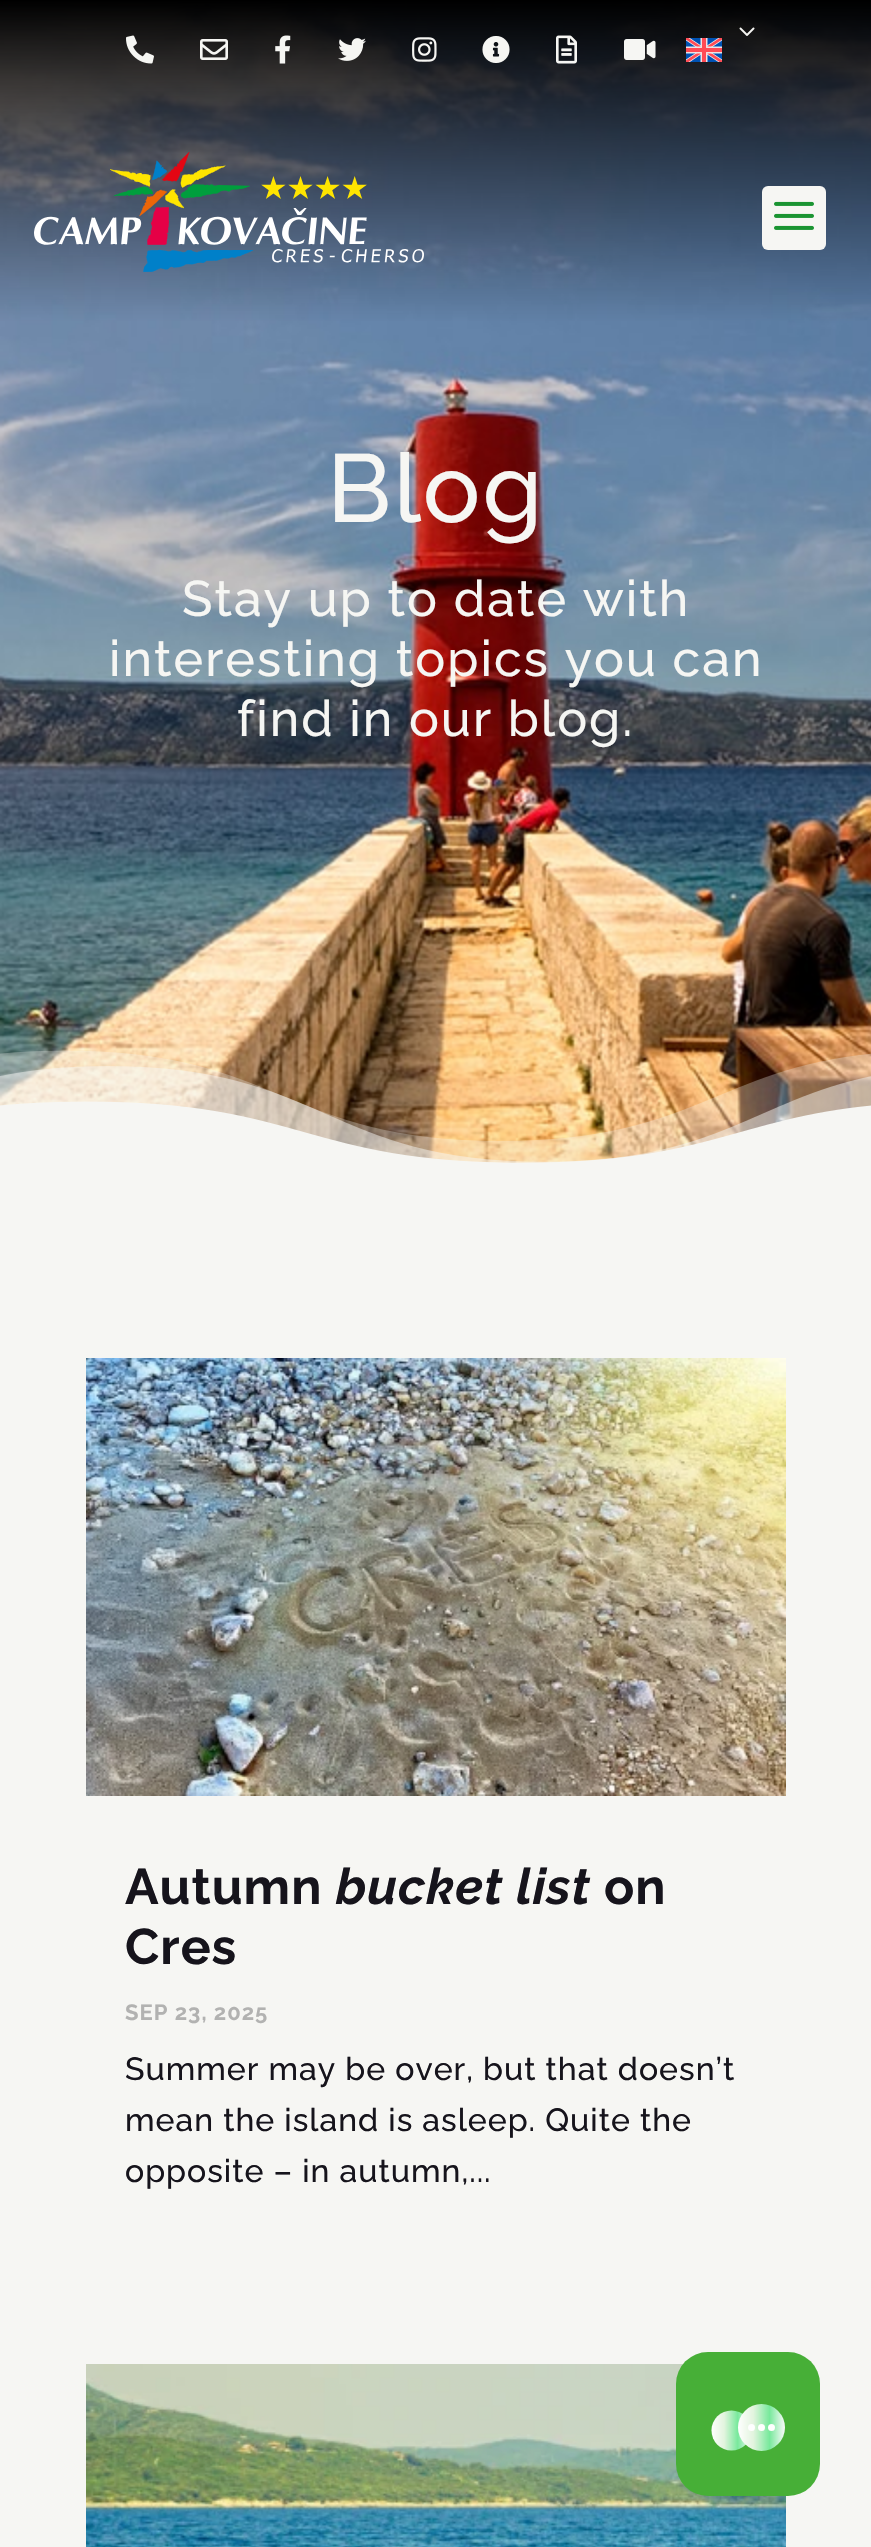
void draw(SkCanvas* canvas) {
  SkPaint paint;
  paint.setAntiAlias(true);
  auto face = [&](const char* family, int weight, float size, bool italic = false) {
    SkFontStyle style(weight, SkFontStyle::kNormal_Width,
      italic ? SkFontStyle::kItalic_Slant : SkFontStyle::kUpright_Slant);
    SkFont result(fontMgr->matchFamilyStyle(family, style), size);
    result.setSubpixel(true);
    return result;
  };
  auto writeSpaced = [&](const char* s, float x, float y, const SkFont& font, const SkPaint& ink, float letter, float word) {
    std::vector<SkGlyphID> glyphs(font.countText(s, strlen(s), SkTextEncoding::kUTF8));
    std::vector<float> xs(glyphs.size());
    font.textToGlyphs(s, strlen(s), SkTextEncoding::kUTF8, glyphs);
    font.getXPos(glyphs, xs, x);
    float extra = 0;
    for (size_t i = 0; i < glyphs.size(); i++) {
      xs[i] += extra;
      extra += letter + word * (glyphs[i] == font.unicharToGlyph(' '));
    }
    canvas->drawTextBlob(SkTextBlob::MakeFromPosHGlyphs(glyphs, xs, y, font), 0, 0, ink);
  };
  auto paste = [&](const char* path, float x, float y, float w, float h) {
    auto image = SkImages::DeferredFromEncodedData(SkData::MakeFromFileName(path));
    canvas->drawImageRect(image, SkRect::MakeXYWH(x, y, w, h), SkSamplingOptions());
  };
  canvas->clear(0xffffffff);
  paste("img/13.png", 0, 0, 871, 1163);
  paste("img/1.png", 126, 35, 28, 29);
  paste("img/2.png", 200, 39, 28, 21);
  paste("img/3.png", 275, 35, 16, 29);
  paste("img/4.png", 338, 38, 28, 23);
  paste("img/5.png", 412, 37, 25, 25);
  paste("img/6.png", 482, 36, 28, 27);
  paste("img/7.png", 556, 35, 21, 29);
  paste("img/8.png", 624, 39, 32, 21);
  paste("img/9.png", 739, 27, 16, 9);
  paste("img/10.png", 686, 38, 36, 24);
  paste("img/11.png", 34, 152, 390, 120);
  paint.setColor(0xfff6f6f3);
  canvas->drawRoundRect(SkRect::MakeXYWH(762, 186, 64, 64), 6, 6, paint);
  paste("img/12.png", 774, 201, 40, 29);
  paste("img/14.png", 0, 1050, 871, 150);
  canvas->drawRect(SkRect::MakeXYWH(0, 1200, 871, 1347), paint);
  paste("img/15.png", 86, 1358, 700, 438);
  paste("img/16.png", 86, 2364, 700, 183);
  paint.setColor(0xff47af37);
  canvas->drawRoundRect(SkRect::MakeXYWH(676, 2352, 144, 144), 32, 32, paint);
  {
    const SkColor colors[] = {0xffffffff, 0xffe2f4de, 0xff78e99c, 0xfffafafa};
    const float stops[] = {0, 0.33f, 0.67f, 1};
    const SkPoint ends[] = {{711, 2431}, {751, 2431}};
    paint.setShader(SkGradientShader::MakeLinear(ends, colors, stops, 4, SkTileMode::kClamp));
    paint.setAlpha(255);
  }
  canvas->drawCircle(731.5f, 2430.5f, 20, paint);
  {
    const SkColor colors[] = {0xffffffff, 0xffe2f4de, 0xff78e99c, 0xfffafafa};
    const float stops[] = {0, 0.33f, 0.67f, 1};
    const SkPoint ends[] = {{738, 2427}, {785, 2427}};
    paint.setShader(SkGradientShader::MakeLinear(ends, colors, stops, 4, SkTileMode::kClamp));
    paint.setAlpha(255);
  }
  canvas->drawCircle(761.5f, 2427.5f, 23.5f, paint);
  paint.setShader(nullptr);
  paint.setColor(0xffffffff);
  canvas->drawCircle(751.5f, 2427.5f, 3.5f, paint);
  canvas->drawCircle(761.5f, 2427.5f, 3.5f, paint);
  canvas->drawCircle(771.5f, 2427.5f, 3.5f, paint);
  auto f0 = face("Raleway", 500, 96);
  paint.setColor(0xfff6f6f3);
  writeSpaced("Blog", 327, 522, f0, paint, 2, 0);
  auto f1 = face("Raleway", 500, 50);
  {
    const struct { const char* s; float x, y; } items[] = {
      {"Stay up to date with", 182, 616},
      {"interesting topics you can", 109, 676},
      {"find in our blog.", 237, 736},
    };
    for (auto [s, x, y] : items) {
      writeSpaced(s, x, y, f1, paint, 2, 0);
    }
  }
  auto f2 = face("Raleway", 700, 50);
  paint.setColor(0xff16141c);
  writeSpaced("Autumn", 125, 1904, f2, paint, 1, 0);
  auto f3 = face("Raleway", 700, 50, true);
  writeSpaced("bucket list", 336, 1904, f3, paint, 1, 0);
  writeSpaced("on", 604, 1904, f2, paint, 1, 0);
  writeSpaced("Cres", 125, 1964, f2, paint, 1, 0);
  auto f4 = face("Raleway", 700, 22);
  paint.setColor(0xffb2b2b1);
  writeSpaced("SEP 23, 2025", 125, 2020, f4, paint, 1, 0);
  auto f5 = face("Raleway", 500, 32);
  paint.setColor(0xff16141c);
  {
    const struct { const char* s; float x, y; } items[] = {
      {"Summer may be over, but that doesn’t", 125, 2080},
      {"mean the island is asleep. Quite the", 125, 2131},
      {"opposite – in autumn,...", 125, 2182},
    };
    for (auto [s, x, y] : items) {
      writeSpaced(s, x, y, f5, paint, 1, 0);
    }
  }
}
